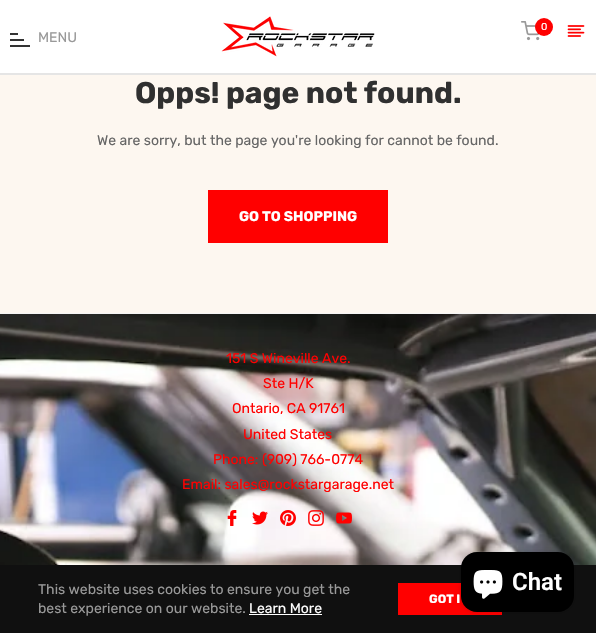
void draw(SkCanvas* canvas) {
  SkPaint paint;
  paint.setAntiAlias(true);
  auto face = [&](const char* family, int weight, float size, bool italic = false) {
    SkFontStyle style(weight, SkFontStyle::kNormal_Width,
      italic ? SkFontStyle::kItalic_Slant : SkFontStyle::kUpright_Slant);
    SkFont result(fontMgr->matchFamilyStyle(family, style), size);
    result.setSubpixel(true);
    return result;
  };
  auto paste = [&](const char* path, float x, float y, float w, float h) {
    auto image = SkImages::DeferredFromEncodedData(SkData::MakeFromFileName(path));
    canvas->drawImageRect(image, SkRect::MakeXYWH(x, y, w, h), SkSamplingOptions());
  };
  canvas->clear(0xffffffff);
  paste("img/1.png", 221, 16, 154, 41);
  paste("img/2.png", 521, 21, 19, 20);
  paint.setColor(0xffff0000);
  canvas->drawCircle(544, 27, 9, paint);
  paste("img/3.png", 567, 25, 18, 12);
  {
    const struct { float x, y, w, h; SkColor color; } items[] = {
      {0, 73, 596, 2, 0xffe5e5e5},
      {10, 33, 8, 2, 0xff333333},
      {10, 39, 14, 2, 0xff333333},
      {10, 45, 20, 2, 0xff333333},
      {0, 75, 596, 238, 0xfffdf7f0},
      {208, 190, 180, 53, 0xffff0000},
      {0, 313, 596, 1, 0xfff5f5f5},
    };
    for (auto [x, y, w, h, color] : items) {
      paint.setColor(color);
      canvas->drawRect(SkRect::MakeXYWH(x, y, w, h), paint);
    }
  }
  paste("img/4.png", 0, 314, 596, 251);
  paste("img/5.png", 227, 510, 10, 16);
  paste("img/6.png", 252, 511, 16, 14);
  paste("img/7.png", 280, 510, 16, 16);
  paste("img/8.png", 308, 510, 16, 16);
  paste("img/9.png", 336, 512, 16, 12);
  {
    const struct { float x, y, w, h; SkColor color; } items[] = {
      {0, 565, 596, 68, 0xff101010},
      {249, 614, 73, 1, 0xffffffff},
      {398, 583, 104, 32, 0xffff0000},
    };
    for (auto [x, y, w, h, color] : items) {
      paint.setColor(color);
      canvas->drawRect(SkRect::MakeXYWH(x, y, w, h), paint);
    }
  }
  paint.setColor(0x26000000);
  paint.setMaskFilter(SkMaskFilter::MakeBlur(kNormal_SkBlurStyle, 2.5f));
  canvas->drawRoundRect(SkRect::MakeXYWH(461, 552, 113, 60), 16, 16, paint);
  paint.setMaskFilter(nullptr);
  paint.setColor(0xff000000);
  canvas->drawRoundRect(SkRect::MakeXYWH(461, 552, 113, 60), 16, 16, paint);
  paste("img/10.png", 473, 570, 30, 29);
  auto f0 = face("Rubik", 400, 10);
  paint.setColor(0xffffffff);
  canvas->drawString("0", 541, 30, f0, paint);
  auto f1 = face("Rubik", 400, 14);
  paint.setColor(0xff999999);
  canvas->drawString("MENU", 38, 42, f1, paint);
  auto f2 = face("Rubik", 700, 30);
  paint.setColor(0xff303030);
  canvas->drawString("Opps! page not found.", 135, 103, f2, paint);
  paint.setColor(0xff666666);
  canvas->drawString("We are sorry, but the page you're looking for cannot be found.", 97, 145, f1, paint);
  auto f3 = face("Rubik", 700, 14);
  paint.setColor(0xffffffff);
  canvas->drawString("GO TO SHOPPING", 239, 221, f3, paint);
  paint.setColor(0xffff0000);
  {
    const struct { const char* s; float x, y; } items[] = {
      {"151 S Wineville Ave.", 226, 363},
      {"Ste H/K", 263, 388},
      {"Ontario, CA 91761", 232, 413},
      {"United States", 243, 439},
      {"Phone: (909) 766-0774", 213, 464},
      {"Email: sales@rockstargarage.net", 182, 489},
    };
    for (auto [s, x, y] : items) {
      canvas->drawString(s, x, y, f1, paint);
    }
  }
  paint.setColor(0xff999999);
  canvas->drawString("This website uses cookies to ensure you get the", 38, 594, f1, paint);
  canvas->drawString("best experience on our website.", 38, 613, f1, paint);
  paint.setColor(0xffffffff);
  canvas->drawString("Learn More", 249, 613, f1, paint);
  auto f4 = face("Rubik", 700, 12);
  canvas->drawString("GOT I", 429, 603, f4, paint);
  auto f5 = face("Roboto", 600, 24);
  canvas->drawString("Chat", 512, 590, f5, paint);
}
